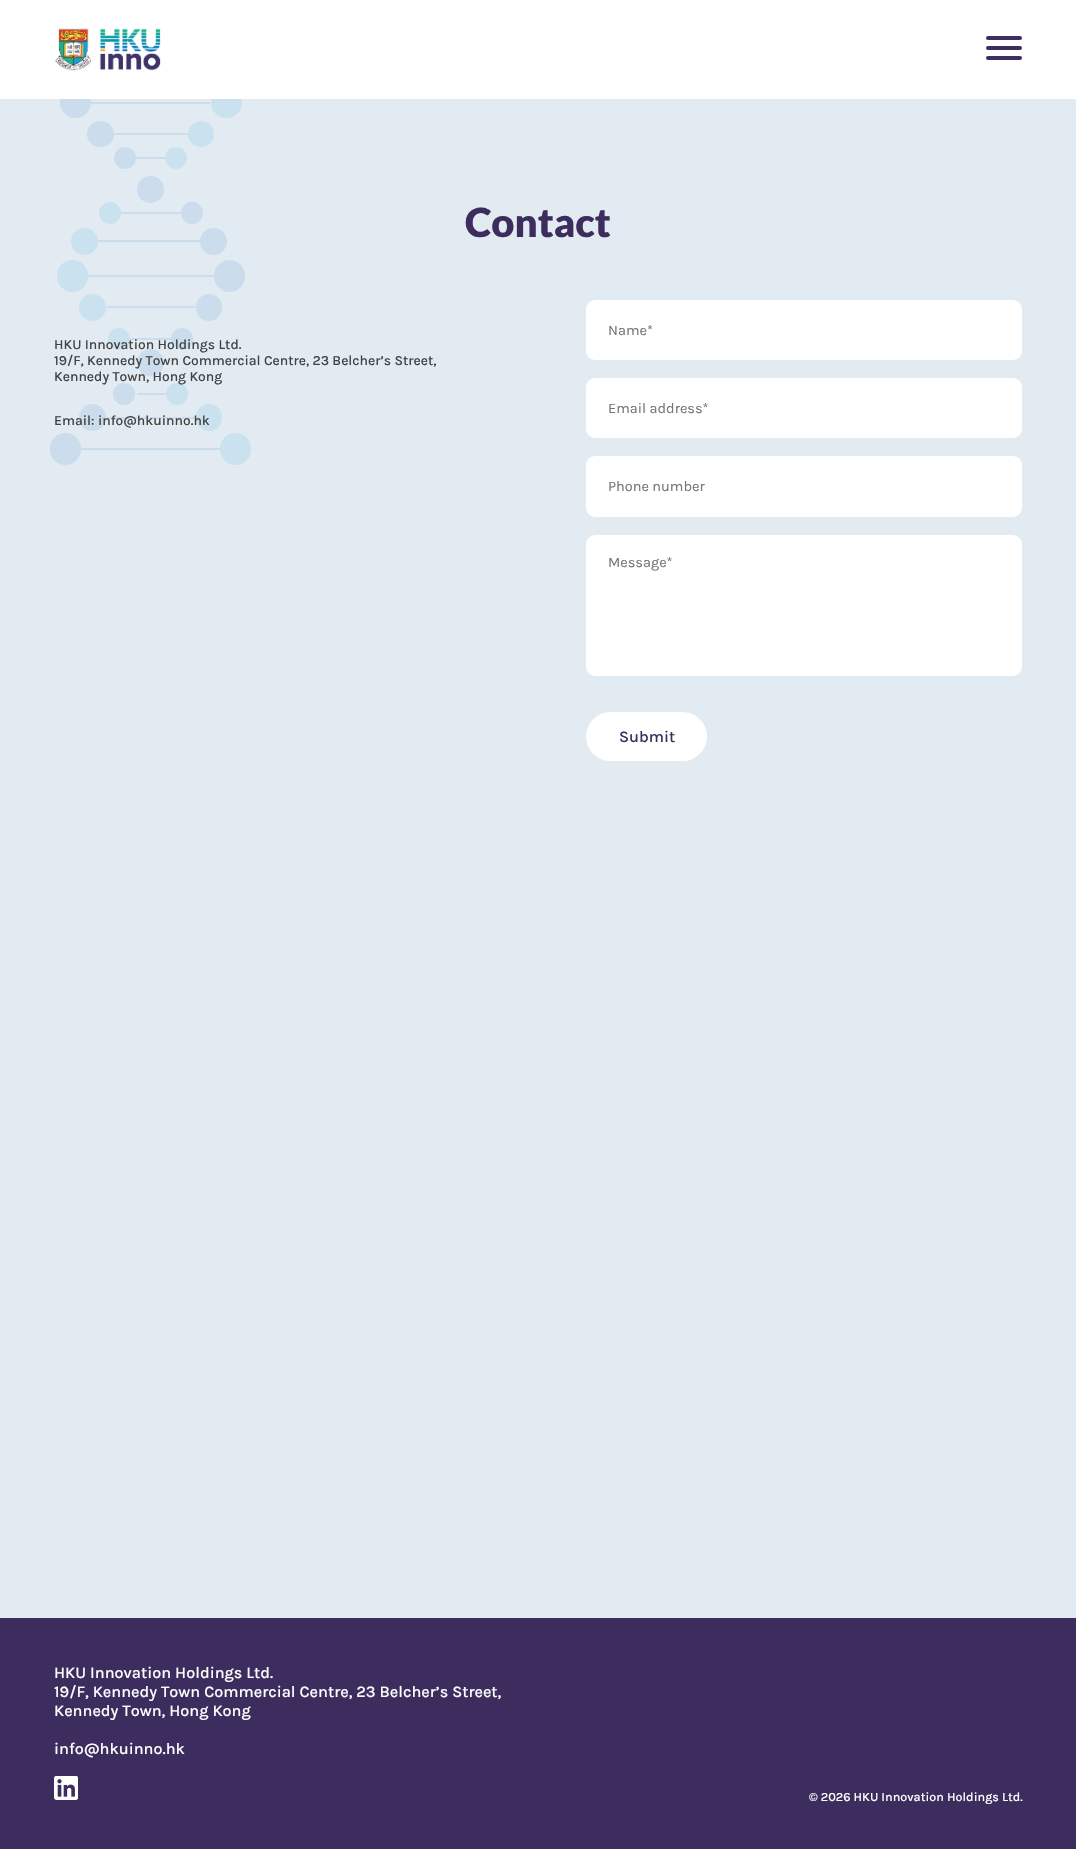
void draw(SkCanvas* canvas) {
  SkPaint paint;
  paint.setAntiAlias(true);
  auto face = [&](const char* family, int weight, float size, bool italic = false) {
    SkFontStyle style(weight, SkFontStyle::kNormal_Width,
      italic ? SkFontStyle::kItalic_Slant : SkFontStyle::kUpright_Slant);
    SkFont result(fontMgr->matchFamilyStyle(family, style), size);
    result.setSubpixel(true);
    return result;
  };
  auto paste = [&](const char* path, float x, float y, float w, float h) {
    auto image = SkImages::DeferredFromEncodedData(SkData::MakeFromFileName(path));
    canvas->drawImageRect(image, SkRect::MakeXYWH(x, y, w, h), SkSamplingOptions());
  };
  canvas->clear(0xff3c2d5e);
  paint.setColor(0xffe2ebf1);
  canvas->drawRect(SkRect::MakeXYWH(0, 99, 1076, 1519), paint);
  paint.setColor(0xffcbdded);
  canvas->drawRoundRect(SkRect::MakeXYWH(60, 86, 31, 32), 15.5f, 15.5f, paint);
  paint.setColor(0xffcae2ef);
  canvas->drawRoundRect(SkRect::MakeXYWH(211, 86, 31, 32), 15.5f, 15.5f, paint);
  paint.setColor(0xffffffff);
  canvas->drawRect(SkRect::MakeXYWH(0, 0, 1076, 99), paint);
  paste("img/1.png", 55, 28, 106, 43);
  paint.setColor(0xff3e2f60);
  canvas->drawRoundRect(SkRect::MakeXYWH(986, 36, 36, 4), 2, 2, paint);
  paint.setColor(0xff3c2d5e);
  canvas->drawRoundRect(SkRect::MakeXYWH(986, 46, 36, 4), 2, 2, paint);
  paint.setColor(0xff3e2f60);
  canvas->drawRoundRect(SkRect::MakeXYWH(986, 56, 36, 4), 2, 2, paint);
  paint.setColor(0xffcbdded);
  canvas->drawRect(SkRect::MakeXYWH(91, 102, 119, 2), paint);
  canvas->drawRect(SkRect::MakeXYWH(113, 133, 75, 2), paint);
  canvas->drawRoundRect(SkRect::MakeXYWH(87, 121, 27, 26), 13, 13, paint);
  paint.setColor(0xffcae2ef);
  canvas->drawCircle(201, 134, 13, paint);
  paint.setColor(0xffcbdded);
  canvas->drawRect(SkRect::MakeXYWH(135, 157, 31, 2), paint);
  canvas->drawCircle(125, 158, 11, paint);
  paint.setColor(0xffcae2ef);
  canvas->drawCircle(176, 158, 11, paint);
  paint.setColor(0xffcbdded);
  canvas->drawCircle(150.5f, 189.5f, 13.5f, paint);
  canvas->drawRect(SkRect::MakeXYWH(119, 212, 63, 2), paint);
  paint.setColor(0xffcae2ef);
  canvas->drawCircle(110, 213, 11, paint);
  paint.setColor(0xffcbdded);
  canvas->drawCircle(192, 213, 11, paint);
  canvas->drawRect(SkRect::MakeXYWH(97, 240, 104, 2), paint);
  paint.setColor(0xffcae2ef);
  canvas->drawCircle(84.5f, 241.5f, 13.5f, paint);
  paint.setColor(0xffcbdded);
  canvas->drawCircle(213.5f, 241.5f, 13.5f, paint);
  paint.setColor(0xffcae2ef);
  canvas->drawRoundRect(SkRect::MakeXYWH(57, 260, 31, 32), 15.5f, 15.5f, paint);
  paint.setColor(0xffcbdded);
  canvas->drawRect(SkRect::MakeXYWH(88, 275, 126, 2), paint);
  canvas->drawRoundRect(SkRect::MakeXYWH(214, 260, 31, 32), 15.5f, 15.5f, paint);
  paint.setColor(0xffcae2ef);
  canvas->drawCircle(92.5f, 307.5f, 13.5f, paint);
  paint.setColor(0xffcbdded);
  canvas->drawRect(SkRect::MakeXYWH(107, 306, 88, 2), paint);
  canvas->drawRoundRect(SkRect::MakeXYWH(196, 294, 26, 27), 13, 13, paint);
  paint.setColor(0xffcae2ef);
  canvas->drawCircle(119, 339, 11, paint);
  paint.setColor(0xffcbdded);
  canvas->drawRect(SkRect::MakeXYWH(130, 338, 41, 2), paint);
  canvas->drawCircle(182, 339, 11, paint);
  canvas->drawCircle(150.5f, 362.5f, 13.5f, paint);
  canvas->drawCircle(124, 394, 11, paint);
  canvas->drawRect(SkRect::MakeXYWH(137, 393, 31, 2), paint);
  paint.setColor(0xffcae2ef);
  canvas->drawCircle(177, 394, 11, paint);
  paint.setColor(0xffcbdded);
  canvas->drawCircle(92.5f, 417.5f, 13.5f, paint);
  canvas->drawRect(SkRect::MakeXYWH(107, 417, 88, 2), paint);
  paint.setColor(0xffcae2ef);
  canvas->drawRoundRect(SkRect::MakeXYWH(196, 404, 26, 27), 13, 13, paint);
  paint.setColor(0xffcbdded);
  canvas->drawRoundRect(SkRect::MakeXYWH(50, 433, 31, 32), 15.5f, 15.5f, paint);
  canvas->drawRect(SkRect::MakeXYWH(81, 448, 139, 2), paint);
  paint.setColor(0xffcae2ef);
  canvas->drawRoundRect(SkRect::MakeXYWH(220, 433, 31, 32), 15.5f, 15.5f, paint);
  paint.setColor(0xffffffff);
  canvas->drawRoundRect(SkRect::MakeXYWH(586, 300, 436, 60), 9, 9, paint);
  canvas->drawRoundRect(SkRect::MakeXYWH(586, 378, 436, 60), 9, 9, paint);
  canvas->drawRoundRect(SkRect::MakeXYWH(586, 456, 436, 61), 9, 9, paint);
  canvas->drawRoundRect(SkRect::MakeXYWH(586, 535, 436, 141), 9, 9, paint);
  canvas->drawRoundRect(SkRect::MakeXYWH(586, 712, 121, 49), 24.5f, 24.5f, paint);
  paste("img/2.png", 54, 1776, 24, 24);
  auto f0 = face("Lato", 900, 40);
  paint.setColor(0xff3c2d5e);
  canvas->drawString("Contact", 465, 237, f0, paint);
  auto f1 = face("Karla", 500, 13.85f);
  paint.setColor(0xff424242);
  {
    const struct { const char* s; float x, y; } items[] = {
      {"HKU Innovation Holdings Ltd.", 54, 349},
      {"19/F, Kennedy Town Commercial Centre, 23 Belcher’s Street,", 54, 365},
      {"Kennedy Town, Hong Kong", 54, 381},
      {"Email: info@hkuinno.hk", 54, 425},
    };
    for (auto [s, x, y] : items) {
      canvas->drawString(s, x, y, f1, paint);
    }
  }
  auto f2 = face("Karla", 400, 14.5f);
  paint.setColor(0xff757575);
  {
    const struct { const char* s; float x, y; } items[] = {
      {"Name*", 608, 335},
      {"Email address*", 608, 413},
      {"Phone number", 608, 491},
      {"Message*", 608, 567},
    };
    for (auto [s, x, y] : items) {
      canvas->drawString(s, x, y, f2, paint);
    }
  }
  auto f3 = face("Karla", 500, 16.2f);
  paint.setColor(0xff3c2d5e);
  canvas->drawString("Submit", 619, 742, f3, paint);
  paint.setColor(0xffffffff);
  {
    const struct { const char* s; float x, y; } items[] = {
      {"HKU Innovation Holdings Ltd.", 54, 1678},
      {"19/F, Kennedy Town Commercial Centre, 23 Belcher’s Street,", 54, 1697},
      {"Kennedy Town, Hong Kong", 54, 1716},
      {"info@hkuinno.hk", 54, 1754},
    };
    for (auto [s, x, y] : items) {
      canvas->drawString(s, x, y, f3, paint);
    }
  }
  auto f4 = face("Karla", 500, 12.5f);
  canvas->drawString("© 2026 HKU Innovation Holdings Ltd.", 809, 1801, f4, paint);
}
